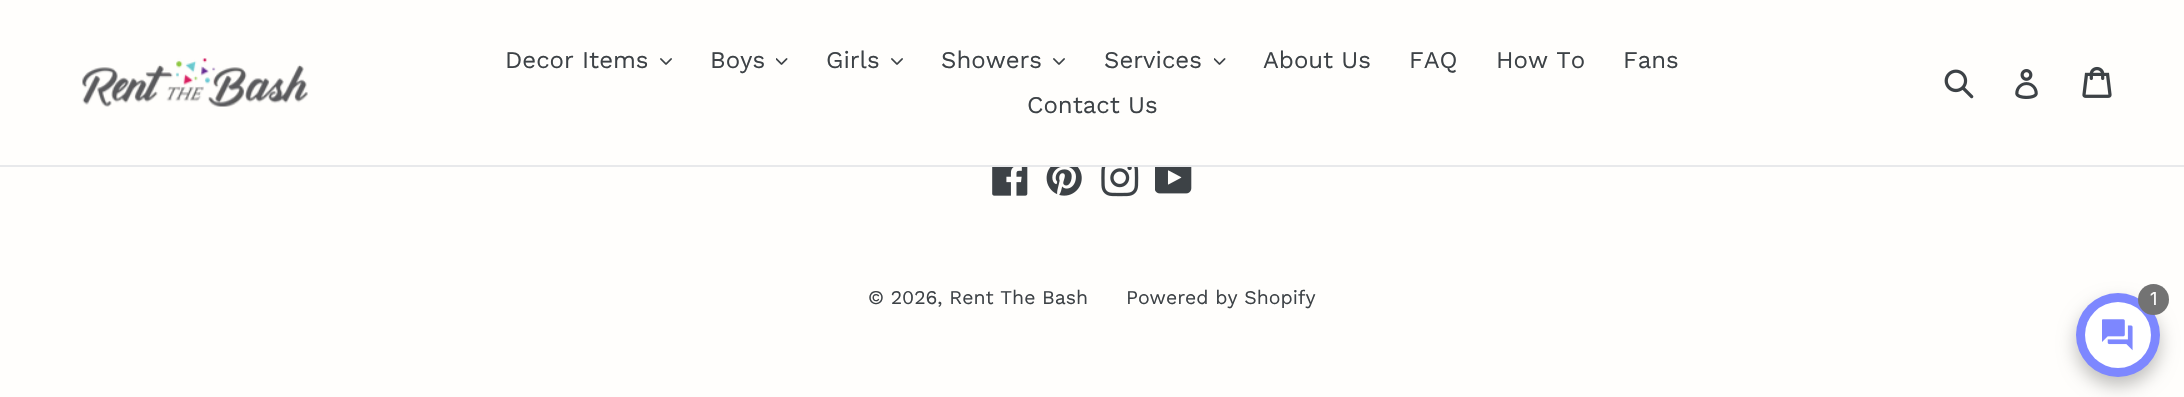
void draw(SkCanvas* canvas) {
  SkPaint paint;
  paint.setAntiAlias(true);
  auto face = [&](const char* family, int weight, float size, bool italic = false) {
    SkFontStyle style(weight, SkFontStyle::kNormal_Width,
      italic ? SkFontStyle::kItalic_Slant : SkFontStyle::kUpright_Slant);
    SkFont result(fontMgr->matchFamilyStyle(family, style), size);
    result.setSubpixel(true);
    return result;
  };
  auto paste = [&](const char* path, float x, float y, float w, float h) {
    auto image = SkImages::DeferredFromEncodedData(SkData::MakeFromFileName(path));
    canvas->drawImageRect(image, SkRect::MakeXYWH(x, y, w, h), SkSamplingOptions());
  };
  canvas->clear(0xfffffefc);
  paint.setColor(0xffe8e9eb);
  canvas->drawRect(SkRect::MakeXYWH(0, 165, 2184, 2), paint);
  paste("img/1.png", 82, 58, 226, 49);
  paste("img/2.png", 660, 58, 12, 7);
  paste("img/3.png", 776, 58, 12, 7);
  paste("img/2.png", 891, 58, 12, 7);
  paste("img/2.png", 1053, 58, 12, 7);
  paste("img/3.png", 1214, 58, 12, 7);
  paste("img/4.png", 1944, 69, 30, 30);
  paste("img/5.png", 2015, 69, 23, 30);
  paste("img/6.png", 2082, 66, 30, 32);
  paste("img/7.png", 992, 167, 36, 29);
  paste("img/8.png", 1046, 167, 36, 29);
  paste("img/9.png", 1101, 167, 38, 30);
  paste("img/10.png", 1155, 167, 37, 27);
  paint.setColor(0x40000000);
  paint.setMaskFilter(SkMaskFilter::MakeBlur(kNormal_SkBlurStyle, 9));
  canvas->drawRoundRect(SkRect::MakeXYWH(2076, 302, 84, 84), 42, 42, paint);
  paint.setMaskFilter(nullptr);
  paint.setColor(0xff7d87ff);
  canvas->drawCircle(2118, 335, 42, paint);
  paint.setColor(0xffffffff);
  canvas->drawCircle(2118, 335, 33, paint);
  paste("img/11.png", 2102, 319, 31, 32);
  paint.setColor(0xff737373);
  canvas->drawCircle(2153.5f, 299.5f, 15.5f, paint);
  auto f0 = face("Work Sans", 400, 24);
  paint.setColor(0xff3d4246);
  {
    const struct { const char* s; float x, y; } items[] = {
      {"Decor Items", 505, 68},
      {"Boys", 710, 68},
      {"Girls", 826, 68},
      {"Showers", 941, 68},
      {"Services", 1104, 68},
      {"About Us", 1263, 68},
      {"FAQ", 1409, 68},
      {"How To", 1496, 68},
      {"Fans", 1623, 68},
      {"Contact Us", 1027, 113},
    };
    for (auto [s, x, y] : items) {
      canvas->drawString(s, x, y, f0, paint);
    }
  }
  auto f1 = face("Work Sans", 400, 19.5f);
  canvas->drawString("© 2026, Rent The Bash", 868, 304, f1, paint);
  canvas->drawString("Powered by Shopify", 1126, 304, f1, paint);
  auto f2 = face("Inter", 400, 18);
  paint.setColor(0xffffffff);
  canvas->drawString("1", 2150, 305, f2, paint);
}
